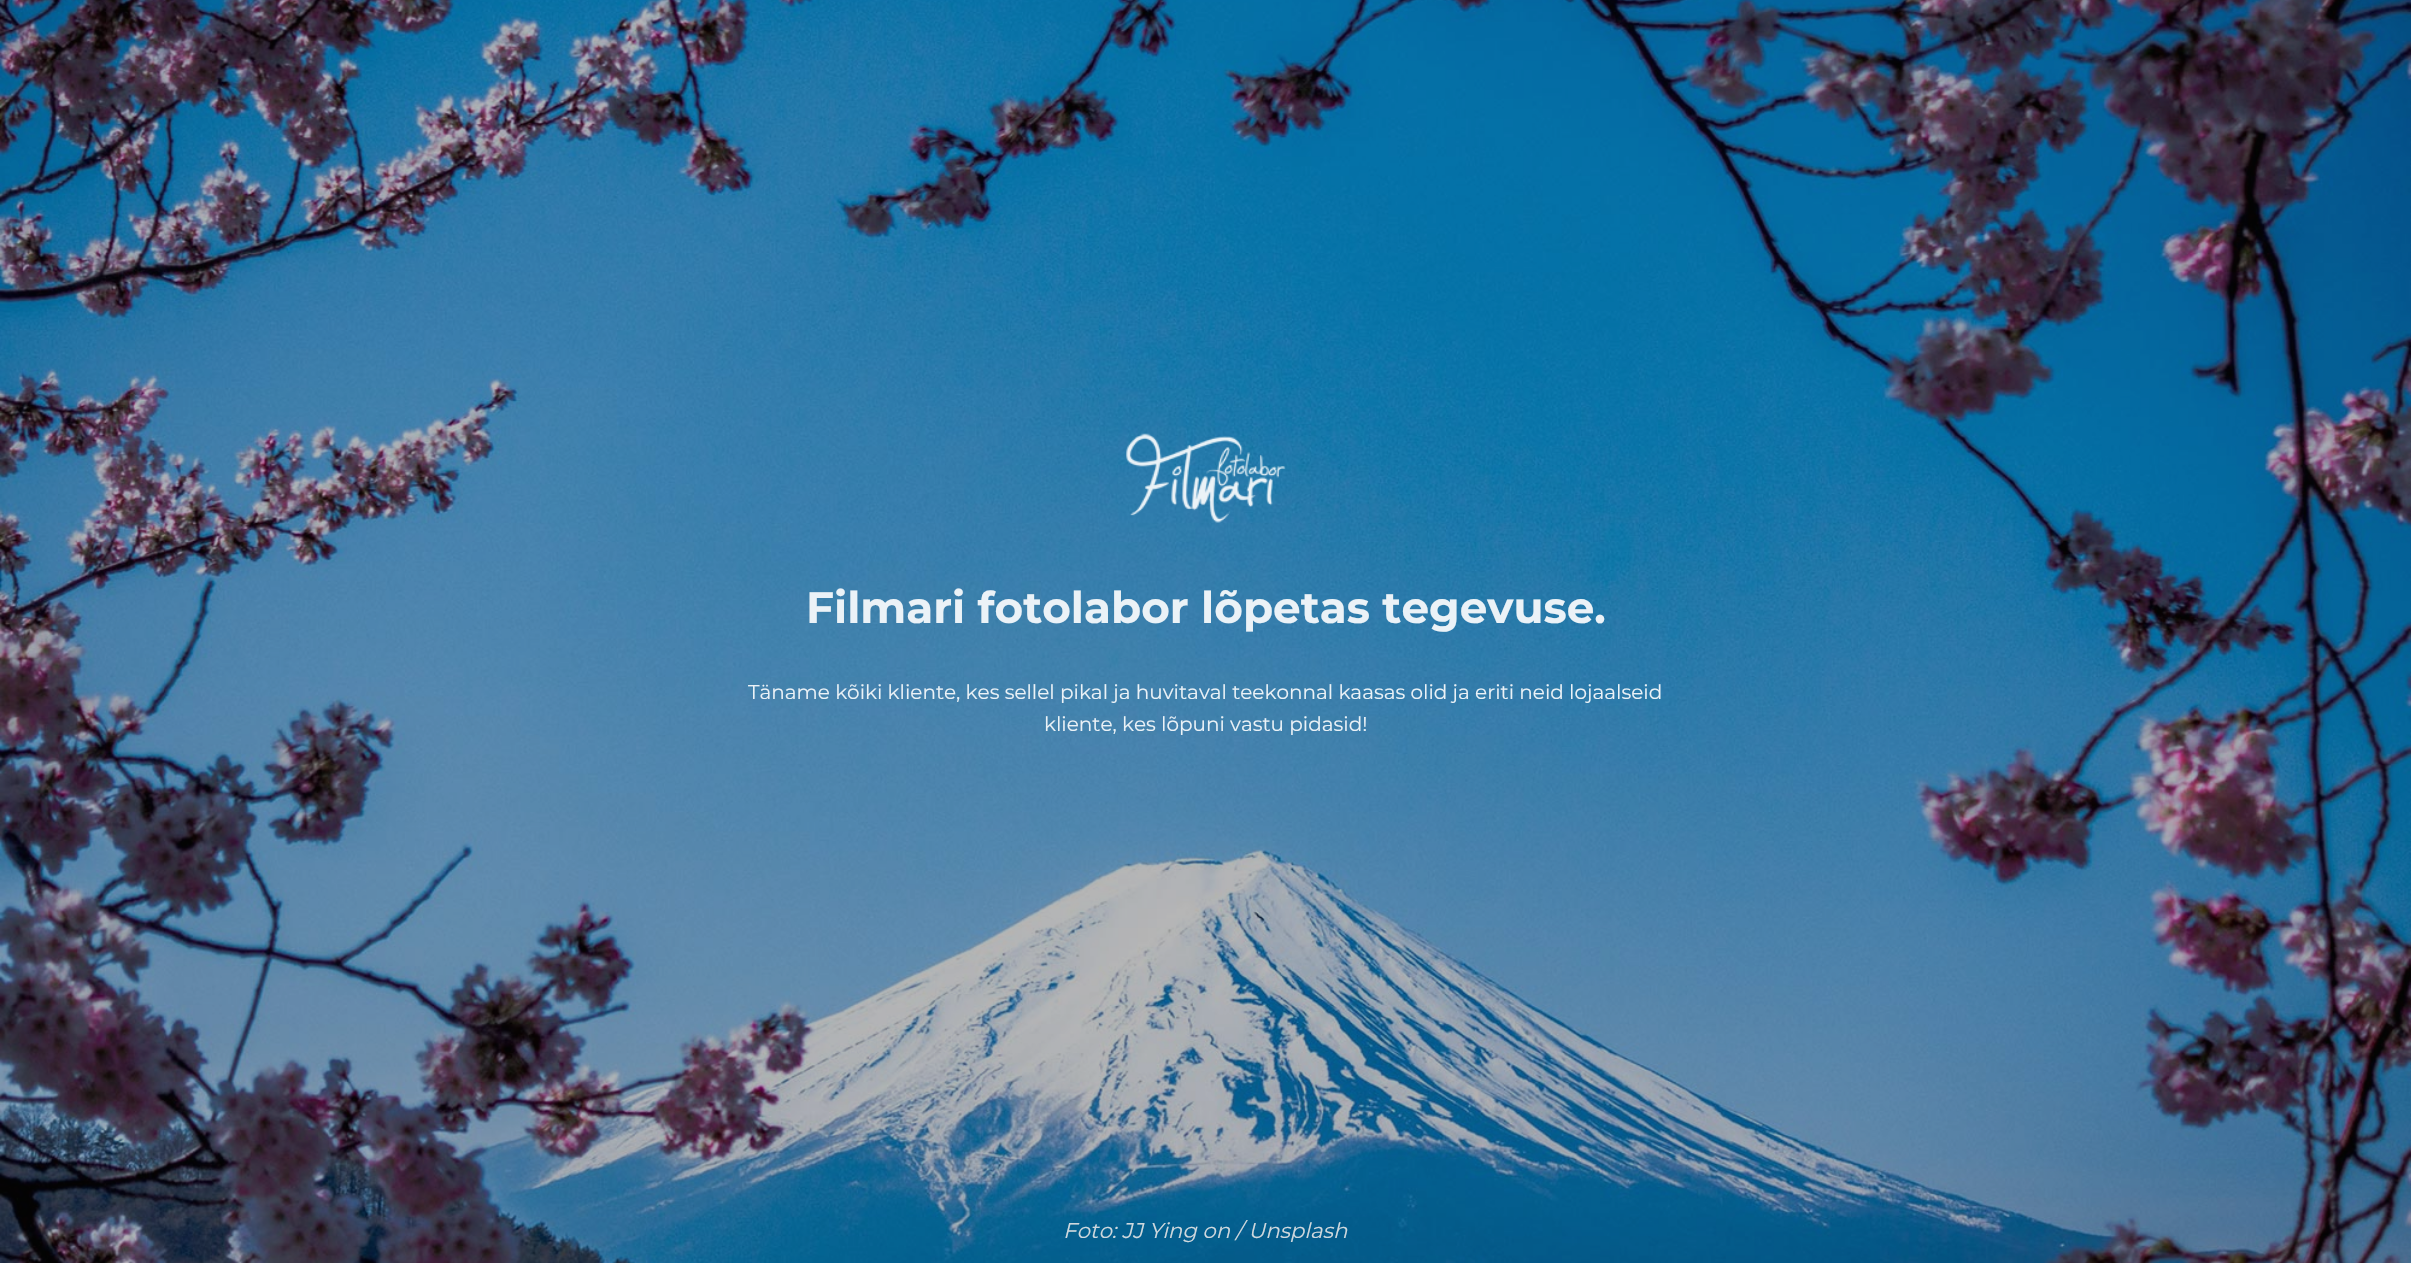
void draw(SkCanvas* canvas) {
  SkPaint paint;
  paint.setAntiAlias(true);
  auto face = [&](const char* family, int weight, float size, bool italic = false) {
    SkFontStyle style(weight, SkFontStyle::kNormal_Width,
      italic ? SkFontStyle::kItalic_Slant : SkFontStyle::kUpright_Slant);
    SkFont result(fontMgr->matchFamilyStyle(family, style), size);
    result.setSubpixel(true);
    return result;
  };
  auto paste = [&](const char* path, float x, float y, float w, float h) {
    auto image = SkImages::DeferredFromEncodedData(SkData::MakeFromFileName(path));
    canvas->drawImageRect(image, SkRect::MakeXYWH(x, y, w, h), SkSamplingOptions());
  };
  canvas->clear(0xffffffff);
  paste("img/1.png", 0, 0, 2411, 1263);
  paste("img/2.png", 1126, 433, 160, 90);
  auto f0 = face("Montserrat", 700, 43.75f);
  paint.setColor(0xffebf2f7);
  canvas->drawString("Filmari fotolabor lõpetas tegevuse.", 806, 623, f0, paint);
  auto f1 = face("Montserrat", 400, 20);
  canvas->drawString("Täname kõiki kliente, kes sellel pikal ja huvitaval teekonnal kaasas olid ja eriti neid lojaalseid", 748, 699, f1, paint);
  canvas->drawString("kliente, kes lõpuni vastu pidasid!", 1044, 731, f1, paint);
  auto f2 = face("Montserrat", 400, 21.25f, true);
  paint.setColor(0xffcfd8dd);
  canvas->drawString("Foto: JJ Ying on / Unsplash", 1063, 1238, f2, paint);
}
